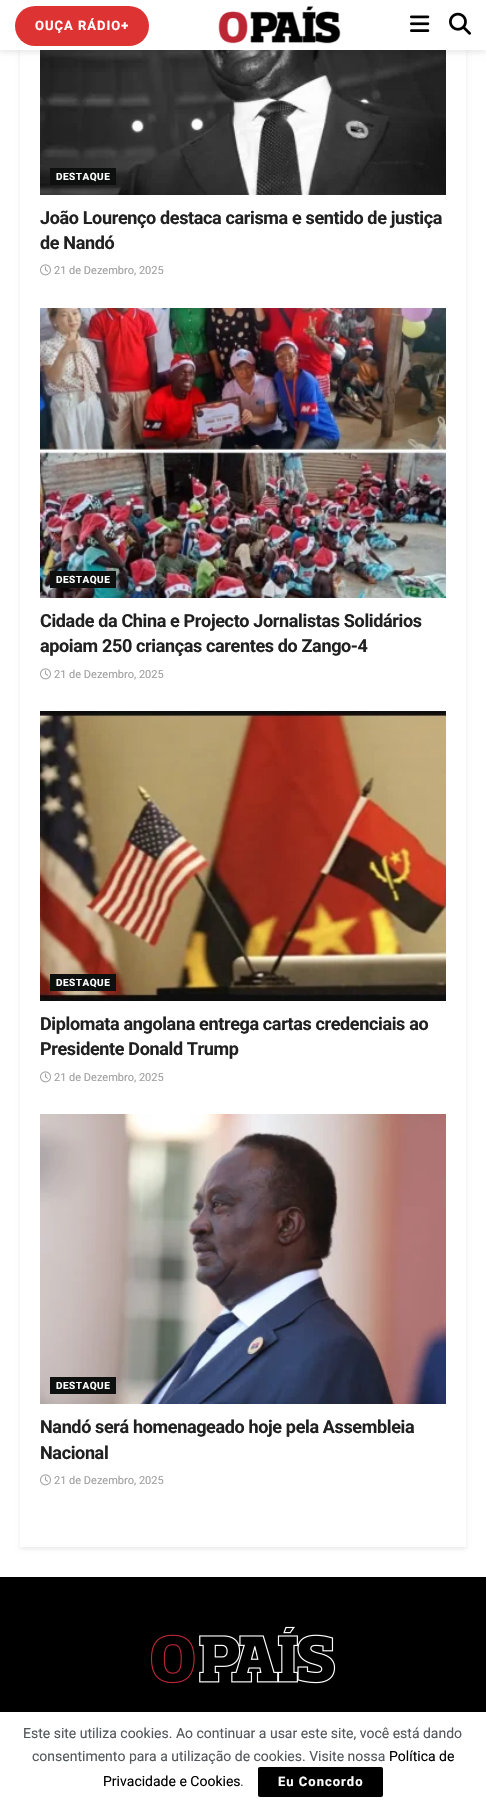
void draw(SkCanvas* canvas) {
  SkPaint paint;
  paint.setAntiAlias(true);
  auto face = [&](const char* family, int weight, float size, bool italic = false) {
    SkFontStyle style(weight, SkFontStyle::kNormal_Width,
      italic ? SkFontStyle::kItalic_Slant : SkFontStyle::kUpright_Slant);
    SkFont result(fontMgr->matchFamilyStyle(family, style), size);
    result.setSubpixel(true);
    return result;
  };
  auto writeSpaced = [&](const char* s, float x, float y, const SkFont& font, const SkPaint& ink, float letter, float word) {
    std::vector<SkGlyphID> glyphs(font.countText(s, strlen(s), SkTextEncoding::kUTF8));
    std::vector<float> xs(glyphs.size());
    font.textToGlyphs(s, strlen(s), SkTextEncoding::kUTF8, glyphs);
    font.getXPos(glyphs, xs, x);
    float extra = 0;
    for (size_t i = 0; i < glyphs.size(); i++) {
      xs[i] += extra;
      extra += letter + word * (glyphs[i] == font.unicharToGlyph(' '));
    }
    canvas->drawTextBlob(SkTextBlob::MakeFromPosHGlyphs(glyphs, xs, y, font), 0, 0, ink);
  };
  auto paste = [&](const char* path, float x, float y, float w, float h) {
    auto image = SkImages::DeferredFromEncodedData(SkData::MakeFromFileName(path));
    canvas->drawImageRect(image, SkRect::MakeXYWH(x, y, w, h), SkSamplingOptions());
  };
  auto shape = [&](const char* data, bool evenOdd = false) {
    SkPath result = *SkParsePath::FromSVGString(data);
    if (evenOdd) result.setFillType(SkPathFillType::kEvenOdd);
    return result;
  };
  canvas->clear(0xffffffff);
  canvas->save();
  canvas->clipPath(shape("M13 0H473V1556H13ZM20-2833H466V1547H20Z", true), true);
  paint.setColor(0x14000000);
  paint.setMaskFilter(SkMaskFilter::MakeBlur(kNormal_SkBlurStyle, 2));
  canvas->drawRect(SkRect::MakeXYWH(20, -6, 446, 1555), paint);
  paint.setMaskFilter(nullptr);
  canvas->restore();
  paste("img/4.png", 40, 50, 406, 145);
  paint.setColor(0x1a000000);
  paint.setMaskFilter(SkMaskFilter::MakeBlur(kNormal_SkBlurStyle, 3));
  canvas->drawRect(SkRect::MakeXYWH(0, 2, 486, 50), paint);
  paint.setMaskFilter(nullptr);
  paint.setColor(0xffffffff);
  canvas->drawRect(SkRect::MakeXYWH(0, 0, 486, 50), paint);
  paint.setColor(0xffdd3333);
  canvas->drawRoundRect(SkRect::MakeXYWH(15, 6, 134, 40), 20, 20, paint);
  paste("img/1.png", 218, 6, 123, 38);
  paste("img/2.png", 410, 15, 20, 17);
  paste("img/3.png", 449, 12, 22, 23);
  paint.setColor(0xff0e0f0f);
  canvas->drawRect(SkRect::MakeXYWH(50, 168, 66, 17), paint);
  paste("img/5.png", 40, 264, 11, 12);
  paste("img/6.png", 40, 308, 406, 290);
  canvas->drawRect(SkRect::MakeXYWH(50, 571, 66, 17), paint);
  paste("img/5.png", 40, 668, 11, 12);
  paste("img/7.png", 40, 711, 406, 290);
  canvas->drawRect(SkRect::MakeXYWH(50, 974, 66, 17), paint);
  paste("img/5.png", 40, 1071, 11, 12);
  paste("img/8.png", 40, 1114, 406, 290);
  canvas->drawRect(SkRect::MakeXYWH(50, 1377, 66, 17), paint);
  paste("img/5.png", 40, 1474, 11, 12);
  paint.setColor(0xff000000);
  canvas->drawRect(SkRect::MakeXYWH(0, 1577, 486, 135), paint);
  paste("img/9.png", 150, 1626, 186, 58);
  canvas->drawRoundRect(SkRect::MakeXYWH(258, 1767, 125, 30), 2, 2, paint);
  auto f0 = face("Roboto", 700, 13);
  paint.setColor(0xffffffff);
  writeSpaced("OUÇA RÁDIO+", 35, 30, f0, paint, 1, 0);
  auto f1 = face("Roboto", 700, 10);
  writeSpaced("DESTAQUE", 56, 180, f1, paint, 0.5f, 0);
  auto f2 = face("Roboto", 700, 18);
  paint.setColor(0xff212121);
  writeSpaced("João Lourenço destaca carisma e sentido de justiça", 40, 224, f2, paint, -0.35f, 0);
  writeSpaced("de Nandó", 40, 249, f2, paint, -0.35f, 0);
  auto f3 = face("Roboto", 400, 11);
  paint.setColor(0xffa0a0a0);
  canvas->drawString("21 de Dezembro, 2025", 54, 274, f3, paint);
  paint.setColor(0xffffffff);
  writeSpaced("DESTAQUE", 56, 583, f1, paint, 0.5f, 0);
  paint.setColor(0xff212121);
  writeSpaced("Cidade da China e Projecto Jornalistas Solidários", 40, 627, f2, paint, -0.35f, 0);
  writeSpaced("apoiam 250 crianças carentes do Zango-4", 40, 652, f2, paint, -0.35f, 0);
  paint.setColor(0xffa0a0a0);
  canvas->drawString("21 de Dezembro, 2025", 54, 678, f3, paint);
  paint.setColor(0xffffffff);
  writeSpaced("DESTAQUE", 56, 986, f1, paint, 0.5f, 0);
  paint.setColor(0xff212121);
  writeSpaced("Diplomata angolana entrega cartas credenciais ao", 40, 1030, f2, paint, -0.35f, 0);
  writeSpaced("Presidente Donald Trump", 40, 1055, f2, paint, -0.35f, 0);
  paint.setColor(0xffa0a0a0);
  canvas->drawString("21 de Dezembro, 2025", 54, 1081, f3, paint);
  paint.setColor(0xffffffff);
  writeSpaced("DESTAQUE", 56, 1389, f1, paint, 0.5f, 0);
  paint.setColor(0xff212121);
  writeSpaced("Nandó será homenageado hoje pela Assembleia", 40, 1433, f2, paint, -0.35f, 0);
  writeSpaced("Nacional", 40, 1459, f2, paint, -0.35f, 0);
  paint.setColor(0xffa0a0a0);
  canvas->drawString("21 de Dezembro, 2025", 54, 1484, f3, paint);
  auto f4 = face("Roboto", 400, 14);
  paint.setColor(0xff53585c);
  canvas->drawString("Este site utiliza cookies. Ao continuar a usar este site, você está dando", 23, 1738, f4, paint);
  canvas->drawString("consentimento para a utilização de cookies. Visite nossa", 32, 1761, f4, paint);
  paint.setColor(0xff000000);
  canvas->drawString("Política de", 389, 1761, f4, paint);
  canvas->drawString("Privacidade e Cookies", 103, 1786, f4, paint);
  paint.setColor(0xff53585c);
  canvas->drawString(".", 240, 1786, f4, paint);
  paint.setColor(0xffffffff);
  writeSpaced("Eu Concordo", 278, 1786, f0, paint, 1, 0);
}
